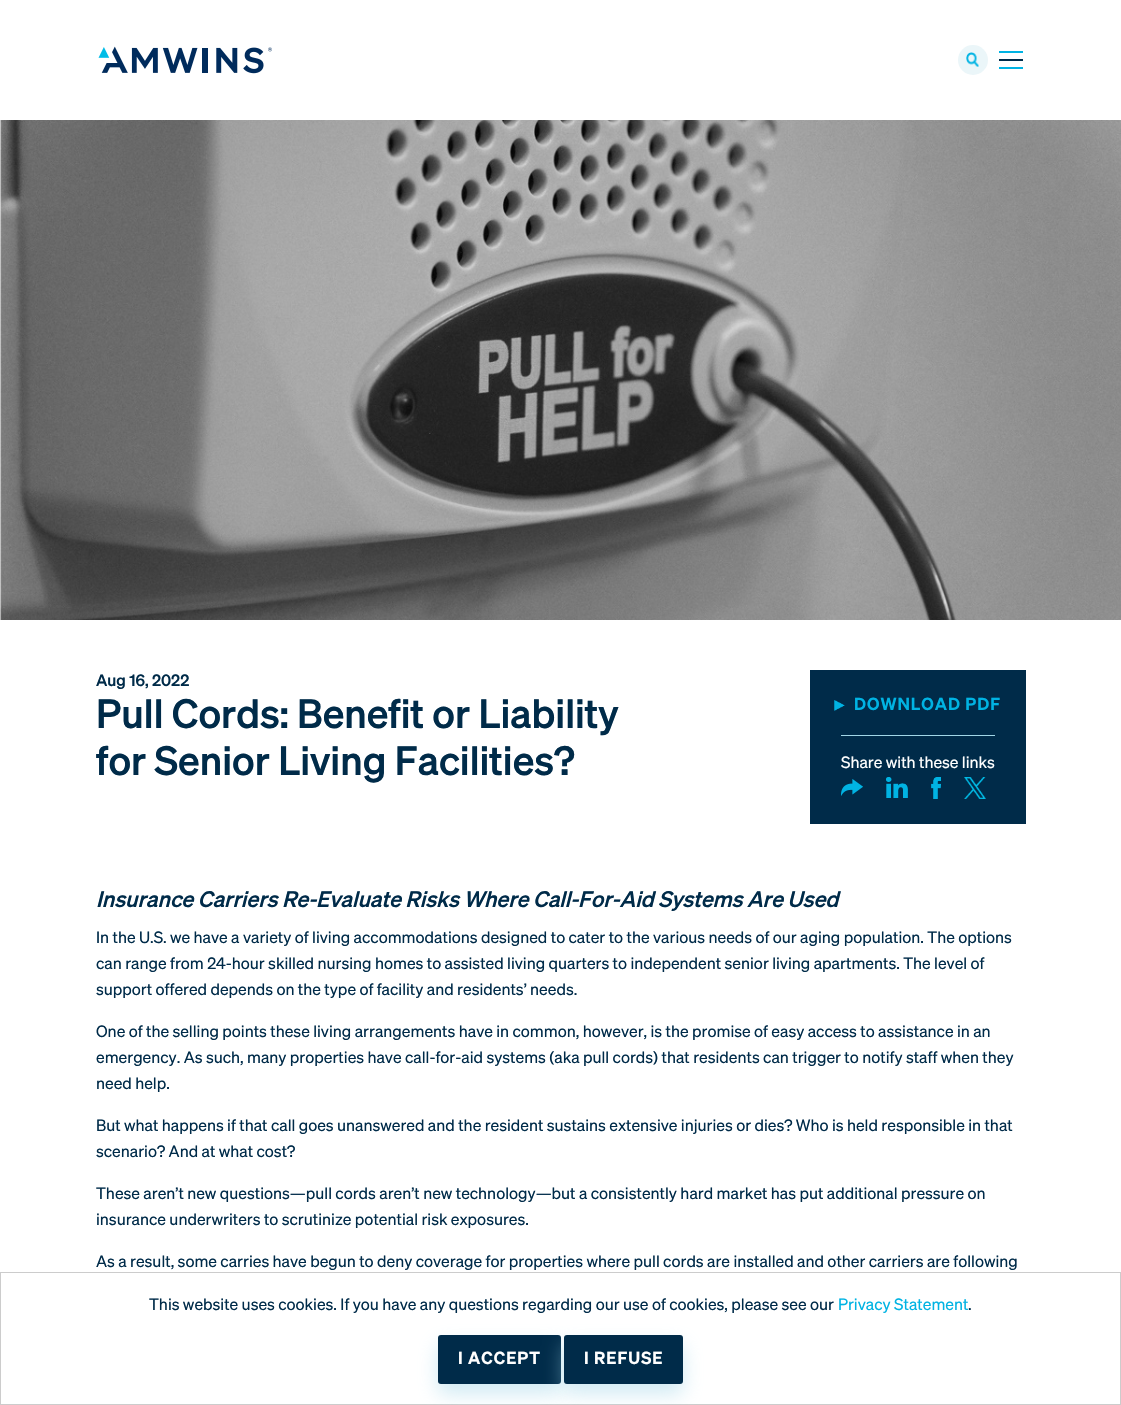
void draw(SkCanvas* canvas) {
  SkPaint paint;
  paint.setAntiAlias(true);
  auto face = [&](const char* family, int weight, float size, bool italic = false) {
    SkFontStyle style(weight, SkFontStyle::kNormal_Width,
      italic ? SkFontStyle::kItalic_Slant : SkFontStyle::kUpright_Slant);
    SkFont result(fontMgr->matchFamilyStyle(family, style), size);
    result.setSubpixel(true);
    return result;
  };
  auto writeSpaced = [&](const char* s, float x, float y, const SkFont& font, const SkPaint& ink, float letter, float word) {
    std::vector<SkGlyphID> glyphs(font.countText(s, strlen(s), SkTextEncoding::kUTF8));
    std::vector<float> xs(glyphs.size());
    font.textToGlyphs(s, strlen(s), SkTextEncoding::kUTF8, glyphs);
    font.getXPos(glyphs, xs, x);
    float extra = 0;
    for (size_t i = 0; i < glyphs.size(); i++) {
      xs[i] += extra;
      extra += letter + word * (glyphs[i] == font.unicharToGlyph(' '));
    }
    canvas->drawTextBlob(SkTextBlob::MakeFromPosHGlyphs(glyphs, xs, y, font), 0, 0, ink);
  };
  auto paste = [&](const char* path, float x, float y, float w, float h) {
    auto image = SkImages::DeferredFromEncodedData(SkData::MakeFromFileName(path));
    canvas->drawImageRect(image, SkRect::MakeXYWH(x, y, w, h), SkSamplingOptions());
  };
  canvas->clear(0xffffffff);
  paste("img/1.png", 98, 46, 174, 28);
  paint.setColor(0xffebf6f9);
  canvas->drawCircle(973, 60, 15, paint);
  paste("img/2.png", 966, 52, 13, 15);
  {
    const struct { float x, y, w, h; SkColor color; } items[] = {
      {999, 51, 24, 2, 0xff00b3e3},
      {999, 59, 24, 2, 0xff002b49},
      {999, 67, 24, 2, 0xff00b3e3},
    };
    for (auto [x, y, w, h, color] : items) {
      paint.setColor(color);
      canvas->drawRect(SkRect::MakeXYWH(x, y, w, h), paint);
    }
  }
  paste("img/3.png", 0, 120, 1121, 500);
  paint.setColor(0xff002b49);
  canvas->drawRect(SkRect::MakeXYWH(810, 670, 216, 154), paint);
  paste("img/4.png", 834, 700, 11, 11);
  paint.setColor(0xffa2d6e7);
  canvas->drawRect(SkRect::MakeXYWH(841, 735, 154, 1), paint);
  paste("img/5.png", 841, 779, 22, 17);
  paste("img/6.png", 886, 777, 22, 21);
  paste("img/7.png", 931, 777, 10, 22);
  paste("img/8.png", 964, 777, 22, 22);
  paint.setStroke(true);
  paint.setStrokeWidth(1);
  paint.setColor(0xffcccccc);
  canvas->drawRect(SkRect::MakeXYWH(0.5f, 1272.5f, 1120, 132), paint);
  paint.setStroke(false);
  paint.setColor(0x80a2d6e7);
  paint.setMaskFilter(SkMaskFilter::MakeBlur(kNormal_SkBlurStyle, 10));
  canvas->drawRoundRect(SkRect::MakeXYWH(438, 1345, 123, 49), 3, 3, paint);
  paint.setMaskFilter(nullptr);
  paint.setColor(0xff002b49);
  canvas->drawRoundRect(SkRect::MakeXYWH(438, 1335, 123, 49), 3, 3, paint);
  paint.setColor(0x80a2d6e7);
  paint.setMaskFilter(SkMaskFilter::MakeBlur(kNormal_SkBlurStyle, 10));
  canvas->drawRoundRect(SkRect::MakeXYWH(564, 1345, 119, 49), 3, 3, paint);
  paint.setMaskFilter(nullptr);
  paint.setColor(0xff002b49);
  canvas->drawRoundRect(SkRect::MakeXYWH(564, 1335, 119, 49), 3, 3, paint);
  auto f0 = face("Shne", 500, 16);
  canvas->drawString("Aug 16, 2022", 96, 686, f0, paint);
  auto f1 = face("Shne", 500, 40);
  canvas->drawString("Pull Cords: Benefit or Liability", 96, 728, f1, paint);
  canvas->drawString("for Senior Living Facilities?", 96, 775, f1, paint);
  auto f2 = face("Shne", 600, 17);
  paint.setColor(0xff00b3e3);
  writeSpaced("DOWNLOAD PDF", 854, 710, f2, paint, 1, 0);
  auto f3 = face("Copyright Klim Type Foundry", 400, 16);
  paint.setColor(0xffffffff);
  canvas->drawString("Share with these links", 841, 768, f3, paint);
  auto f4 = face("Shne", 500, 22, true);
  paint.setColor(0xff002b49);
  canvas->drawString("Insurance Carriers Re-Evaluate Risks Where Call-For-Aid Systems Are Used", 96, 907, f4, paint);
  {
    const struct { const char* s; float x, y; } items[] = {
      {"In the U.S. we have a variety of living accommodations designed to cater to the various needs of our aging population. The options", 96, 943},
      {"can range from 24-hour skilled nursing homes to assisted living quarters to independent senior living apartments. The level of", 96, 969},
      {"support offered depends on the type of facility and residents’ needs.", 96, 995},
      {"One of the selling points these living arrangements have in common, however, is the promise of easy access to assistance in an", 96, 1037},
      {"emergency. As such, many properties have call-for-aid systems (aka pull cords) that residents can trigger to notify staff when they", 96, 1063},
      {"need help.", 96, 1089},
      {"But what happens if that call goes unanswered and the resident sustains extensive injuries or dies? Who is held responsible in that", 96, 1131},
      {"scenario? And at what cost?", 96, 1157},
      {"These aren’t new questions—pull cords aren’t new technology—but a consistently hard market has put additional pressure on", 96, 1199},
      {"insurance underwriters to scrutinize potential risk exposures.", 96, 1225},
      {"As a result, some carries have begun to deny coverage for properties where pull cords are installed and other carriers are following", 96, 1267},
      {"This website uses cookies. If you have any questions regarding our use of cookies, please see our", 149, 1310},
    };
    for (auto [s, x, y] : items) {
      canvas->drawString(s, x, y, f3, paint);
    }
  }
  paint.setColor(0xff00b3e3);
  canvas->drawString("Privacy Statement", 838, 1310, f3, paint);
  paint.setColor(0xff002b49);
  canvas->drawString(".", 968, 1310, f3, paint);
  paint.setColor(0xffffffff);
  writeSpaced("I ACCEPT", 458, 1364, f2, paint, 1, 0);
  writeSpaced("I REFUSE", 584, 1364, f2, paint, 1, 0);
}
